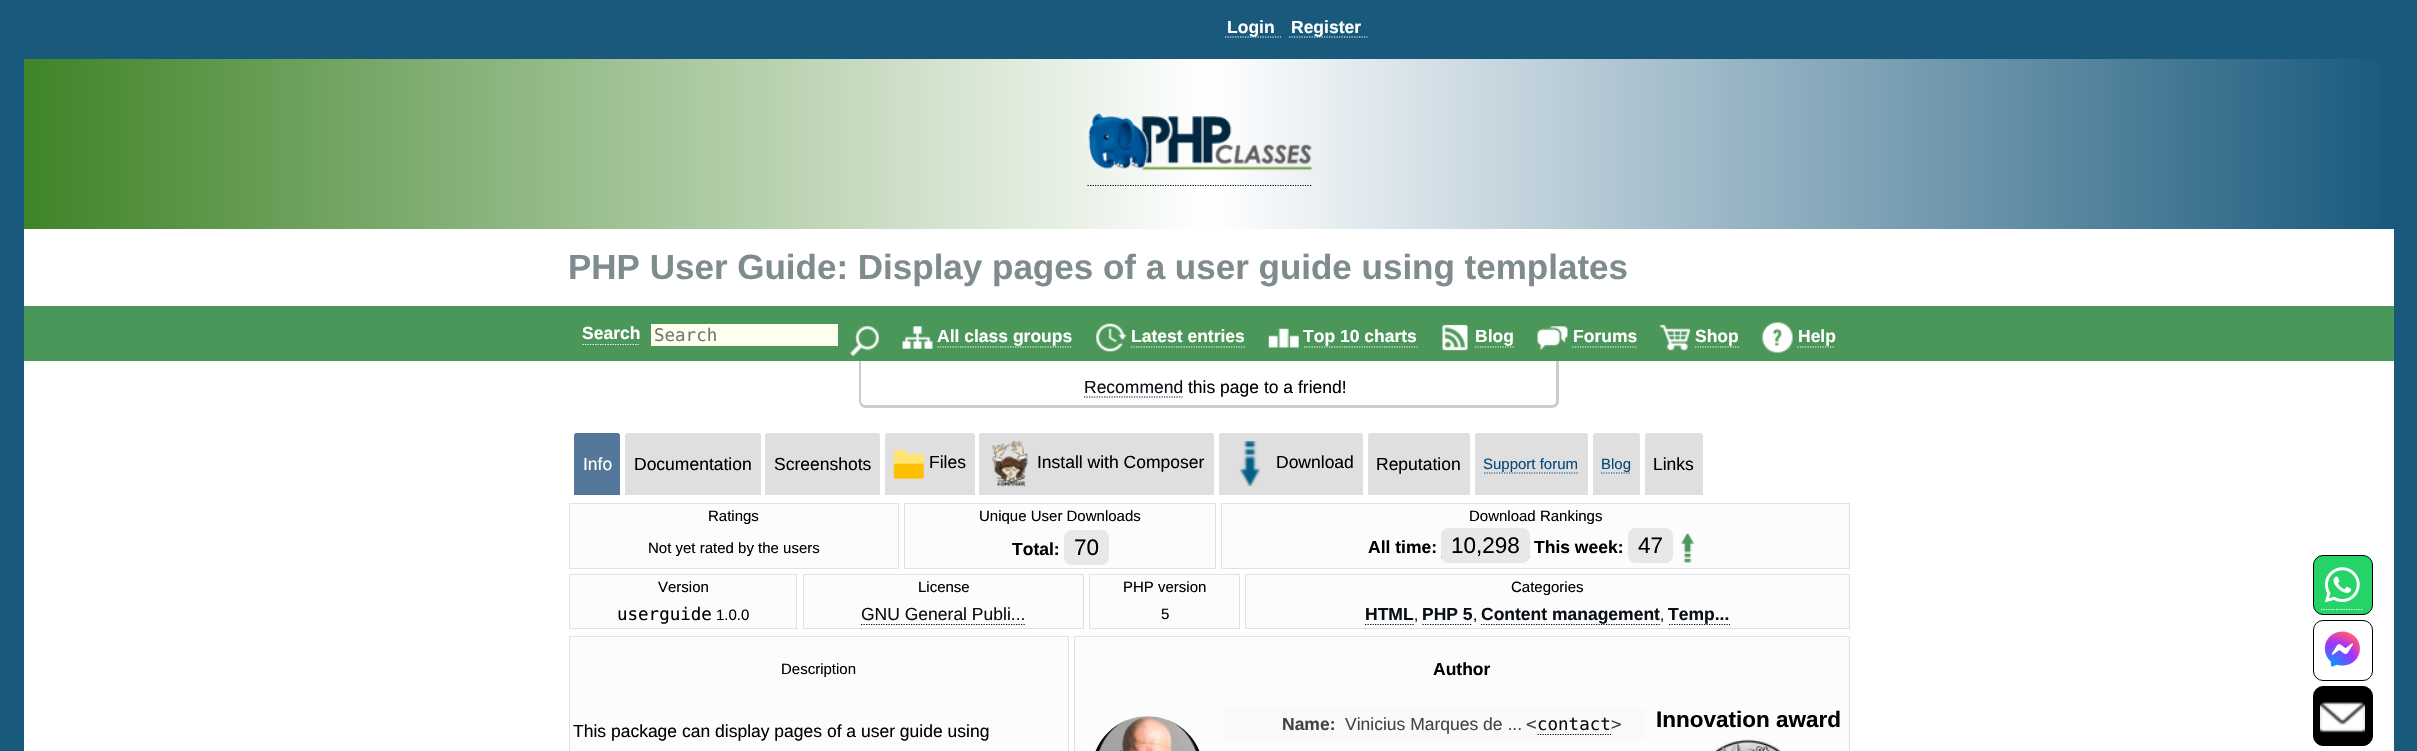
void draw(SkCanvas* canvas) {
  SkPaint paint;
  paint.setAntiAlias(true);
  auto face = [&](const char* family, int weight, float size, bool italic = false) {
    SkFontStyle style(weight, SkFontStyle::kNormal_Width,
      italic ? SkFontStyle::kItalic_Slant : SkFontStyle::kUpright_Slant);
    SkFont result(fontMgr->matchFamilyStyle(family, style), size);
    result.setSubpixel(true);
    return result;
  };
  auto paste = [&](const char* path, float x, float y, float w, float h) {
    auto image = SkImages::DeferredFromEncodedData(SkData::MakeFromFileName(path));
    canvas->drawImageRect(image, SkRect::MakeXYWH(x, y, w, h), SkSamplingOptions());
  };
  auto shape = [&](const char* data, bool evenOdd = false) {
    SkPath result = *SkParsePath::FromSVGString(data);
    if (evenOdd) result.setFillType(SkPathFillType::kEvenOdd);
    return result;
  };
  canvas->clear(0xff19597c);
  paint.setColor(0xffffffff);
  canvas->drawRect(SkRect::MakeXYWH(24, 229, 2370, 522), paint);
  paint.setStroke(true);
  paint.setStrokeWidth(1.2f);
  paint.setPathEffect(SkDashPathEffect::Make({{1.25f, 1.25f}}, 0));
  canvas->drawPath(shape("M1225 37H1281"), paint);
  paint.setPathEffect(nullptr);
  paint.setPathEffect(SkDashPathEffect::Make({{1.25f, 1.25f}}, 0));
  canvas->drawPath(shape("M1289 37H1367.5"), paint);
  paint.setPathEffect(nullptr);
  paint.setStroke(false);
  {
    const SkColor colors[] = {0xff3f8429, 0xffffffff, 0xff19597c};
    const float stops[] = {0, 0.5f, 1};
    const SkPoint ends[] = {{24, 144}, {2394, 144}};
    paint.setShader(SkGradientShader::MakeLinear(ends, colors, stops, 3, SkTileMode::kClamp));
    paint.setAlpha(255);
  }
  canvas->drawRect(SkRect::MakeXYWH(24, 59, 2357, 170), paint);
  paste("img/1.png", 1087, 112, 226, 59);
  paint.setStroke(true);
  paint.setShader(nullptr);
  paint.setColor(0xff090f15);
  paint.setPathEffect(SkDashPathEffect::Make({{1.25f, 1.25f}}, 0));
  canvas->drawPath(shape("M1087.5 185.5H1312.5"), paint);
  paint.setPathEffect(nullptr);
  paint.setStroke(false);
  paint.setColor(0xff4b9759);
  canvas->drawRect(SkRect::MakeXYWH(24, 306, 2370, 55), paint);
  paint.setStroke(true);
  paint.setColor(0xffffffff);
  paint.setPathEffect(SkDashPathEffect::Make({{1.25f, 1.25f}}, 0));
  canvas->drawPath(shape("M582.5 344.5H640"), paint);
  paint.setPathEffect(nullptr);
  paint.setStroke(false);
  paint.setColor(0xffffffee);
  canvas->drawRect(SkRect::MakeXYWH(651, 324, 187, 22), paint);
  paste("img/2.png", 849, 326, 30, 31);
  paste("img/3.png", 902, 326, 31, 23);
  paint.setStroke(true);
  paint.setColor(0xffffffff);
  paint.setPathEffect(SkDashPathEffect::Make({{1.25f, 1.25f}}, 0));
  canvas->drawPath(shape("M937.5 347H1072.5"), paint);
  paint.setPathEffect(nullptr);
  paste("img/4.png", 1096, 323, 31, 29);
  paint.setPathEffect(SkDashPathEffect::Make({{1.25f, 1.25f}}, 0));
  canvas->drawPath(shape("M1131 347H1245"), paint);
  paint.setPathEffect(nullptr);
  paste("img/5.png", 1268, 328, 31, 20);
  paint.setPathEffect(SkDashPathEffect::Make({{1.25f, 1.25f}}, 0));
  canvas->drawPath(shape("M1304 347H1417.5"), paint);
  paint.setPathEffect(nullptr);
  paste("img/6.png", 1442, 324, 26, 27);
  paint.setPathEffect(SkDashPathEffect::Make({{1.25f, 1.25f}}, 0));
  canvas->drawPath(shape("M1475 347H1514"), paint);
  paint.setPathEffect(nullptr);
  paste("img/7.png", 1537, 326, 31, 25);
  paint.setPathEffect(SkDashPathEffect::Make({{1.25f, 1.25f}}, 0));
  canvas->drawPath(shape("M1572.5 347H1637.5"), paint);
  paint.setPathEffect(nullptr);
  paste("img/8.png", 1660, 324, 30, 27);
  paint.setPathEffect(SkDashPathEffect::Make({{1.25f, 1.25f}}, 0));
  canvas->drawPath(shape("M1695 347H1739"), paint);
  paint.setPathEffect(nullptr);
  paste("img/9.png", 1762, 322, 31, 31);
  paint.setPathEffect(SkDashPathEffect::Make({{1.25f, 1.25f}}, 0));
  canvas->drawPath(shape("M1797.5 347H1835"), paint);
  paint.setPathEffect(nullptr);
  paint.setStroke(false);
  paint.setColor(0xffcccccc);
  canvas->drawPath(shape("M859 361H1559V401C1559 405 1556 408 1552 408H865C862 408 859 405 859 401ZM861 361H1556V401C1556 403 1555 405 1552 405H865C863 405 861 403 861 401Z", true), paint);
  paint.setStroke(true);
  paint.setColor(0xff090f15);
  paint.setPathEffect(SkDashPathEffect::Make({{1.25f, 1.25f}}, 0));
  canvas->drawPath(shape("M1084 397H1182.5"), paint);
  paint.setPathEffect(nullptr);
  paint.setStroke(false);
  paint.setColor(0xff557799);
  canvas->drawPath(shape("M576.5 433H617.5C619 433 620 434 620 435.5V495H574V435.5C574 434 575 433 576.5 433Z"), paint);
  paint.setColor(0xffdfdfdf);
  canvas->drawPath(shape("M627.5 433H758.5C760 433 761 434 761 435.5V495H625V435.5C625 434 626 433 627.5 433Z"), paint);
  canvas->drawPath(shape("M767.5 433H877.5C879 433 880 434 880 435.5V495H765V435.5C765 434 766 433 767.5 433Z"), paint);
  canvas->drawPath(shape("M887.5 433H972.5C974 433 975 434 975 435.5V495H885V435.5C885 434 886 433 887.5 433Z"), paint);
  paste("img/10.png", 893, 449, 31, 30);
  canvas->drawPath(shape("M981.5 433H1211.5C1213 433 1214 434 1214 435.5V495H979V435.5C979 434 980 433 981.5 433Z"), paint);
  paste("img/11.png", 992, 441, 36, 46);
  canvas->drawPath(shape("M1221.5 433H1360.5C1362 433 1363 434 1363 435.5V495H1219V435.5C1219 434 1220 433 1221.5 433Z"), paint);
  paste("img/12.png", 1239, 441, 22, 46);
  canvas->drawPath(shape("M1370.5 433H1467.5C1469 433 1470 434 1470 435.5V495H1368V435.5C1368 434 1369 433 1370.5 433Z"), paint);
  canvas->drawPath(shape("M1477.5 433H1585.5C1587 433 1588 434 1588 435.5V495H1475V435.5C1475 434 1476 433 1477.5 433Z"), paint);
  paint.setStroke(true);
  paint.setColor(0xff05497b);
  paint.setPathEffect(SkDashPathEffect::Make({{1.25f, 1.25f}}, 0));
  canvas->drawPath(shape("M1484 473H1579"), paint);
  paint.setPathEffect(nullptr);
  paint.setStroke(false);
  paint.setColor(0xffdfdfdf);
  canvas->drawPath(shape("M1595.5 433H1637.5C1639 433 1640 434 1640 435.5V495H1593V435.5C1593 434 1594 433 1595.5 433Z"), paint);
  paint.setStroke(true);
  paint.setColor(0xff05497b);
  paint.setPathEffect(SkDashPathEffect::Make({{1.25f, 1.25f}}, 0));
  canvas->drawPath(shape("M1601 473H1631"), paint);
  paint.setPathEffect(nullptr);
  paint.setStroke(false);
  paint.setColor(0xffdfdfdf);
  canvas->drawPath(shape("M1647.5 433H1700.5C1702 433 1703 434 1703 435.5V495H1645V435.5C1645 434 1646 433 1647.5 433Z"), paint);
  {
    const struct { float x, y, w, h; SkColor color; } items[] = {
      {570, 504, 328, 64, 0xfffcfcfc},
      {569, 503, 330, 1, 0xffe1e1e1},
      {898, 503, 1, 66, 0xffe1e1e1},
      {569, 503, 1, 26, 0xffe1e1e1},
      {905, 504, 310, 64, 0xfffcfcfc},
      {904, 503, 312, 1, 0xffe1e1e1},
      {1215, 503, 1, 66, 0xffe1e1e1},
      {904, 503, 1, 26, 0xffe1e1e1},
      {1223, 504, 626, 64, 0xfffcfcfc},
      {1221, 503, 629, 1, 0xffe1e1e1},
      {1849, 503, 1, 66, 0xffe1e1e1},
      {1221, 503, 1, 26, 0xffe1e1e1},
      {569, 568, 330, 1, 0xffe1e1e1},
      {569, 529, 1, 40, 0xffe1e1e1},
      {904, 568, 312, 1, 0xffe1e1e1},
      {904, 529, 1, 40, 0xffe1e1e1},
    };
    for (auto [x, y, w, h, color] : items) {
      paint.setColor(color);
      canvas->drawRect(SkRect::MakeXYWH(x, y, w, h), paint);
    }
  }
  paint.setColor(0xffe8e8e8);
  canvas->drawRoundRect(SkRect::MakeXYWH(1064, 530, 45, 35), 8, 8, paint);
  paint.setColor(0xffe1e1e1);
  canvas->drawRect(SkRect::MakeXYWH(1221, 568, 629, 1), paint);
  canvas->drawRect(SkRect::MakeXYWH(1221, 529, 1, 40), paint);
  paint.setStroke(true);
  paint.setColor(0xff26394d);
  paint.setPathEffect(SkDashPathEffect::Make({{1.25f, 1.25f}}, 0));
  canvas->drawPath(shape("M1441 557H1530"), paint);
  paint.setPathEffect(nullptr);
  paint.setStroke(false);
  paint.setColor(0xffe8e8e8);
  canvas->drawRoundRect(SkRect::MakeXYWH(1441, 528, 89, 35), 8, 8, paint);
  canvas->drawRoundRect(SkRect::MakeXYWH(1628, 528, 45, 35), 8, 8, paint);
  paste("img/13.png", 1681, 533, 13, 30);
  {
    const struct { float x, y, w, h; SkColor color; } items[] = {
      {570, 575, 226, 53, 0xfffcfcfc},
      {569, 574, 229, 1, 0xffe1e1e1},
      {796, 574, 1, 55, 0xffe1e1e1},
      {569, 574, 1, 26, 0xffe1e1e1},
      {804, 575, 279, 53, 0xfffcfcfc},
      {803, 574, 281, 1, 0xffe1e1e1},
      {1083, 574, 1, 55, 0xffe1e1e1},
      {803, 574, 1, 26, 0xffe1e1e1},
      {1090, 575, 149, 53, 0xfffcfcfc},
      {1089, 574, 151, 1, 0xffe1e1e1},
      {1239, 574, 1, 55, 0xffe1e1e1},
      {1089, 574, 1, 26, 0xffe1e1e1},
      {1246, 575, 603, 53, 0xfffcfcfc},
      {1245, 574, 605, 1, 0xffe1e1e1},
      {1849, 574, 1, 55, 0xffe1e1e1},
      {1245, 574, 1, 26, 0xffe1e1e1},
      {569, 628, 229, 1, 0xffe1e1e1},
      {569, 600, 1, 29, 0xffe1e1e1},
      {803, 628, 281, 1, 0xffe1e1e1},
      {803, 600, 1, 29, 0xffe1e1e1},
    };
    for (auto [x, y, w, h, color] : items) {
      paint.setColor(color);
      canvas->drawRect(SkRect::MakeXYWH(x, y, w, h), paint);
    }
  }
  paint.setStroke(true);
  paint.setColor(0xff090f15);
  paint.setPathEffect(SkDashPathEffect::Make({{1.25f, 1.25f}}, 0));
  canvas->drawPath(shape("M861 624.5H1026"), paint);
  paint.setPathEffect(nullptr);
  paint.setStroke(false);
  {
    const struct { float x, y, w, h; SkColor color; } items[] = {
      {1089, 628, 151, 1, 0xffe1e1e1},
      {1089, 600, 1, 29, 0xffe1e1e1},
      {1245, 628, 605, 1, 0xffe1e1e1},
      {1245, 600, 1, 29, 0xffe1e1e1},
    };
    for (auto [x, y, w, h, color] : items) {
      paint.setColor(color);
      canvas->drawRect(SkRect::MakeXYWH(x, y, w, h), paint);
    }
  }
  paint.setStroke(true);
  paint.setColor(0xff090f15);
  paint.setPathEffect(SkDashPathEffect::Make({{1.25f, 1.25f}}, 0));
  canvas->drawPath(shape("M1365 624.5H1414"), paint);
  paint.setPathEffect(nullptr);
  paint.setPathEffect(SkDashPathEffect::Make({{1.25f, 1.25f}}, 0));
  canvas->drawPath(shape("M1422.5 624.5H1472.5"), paint);
  paint.setPathEffect(nullptr);
  paint.setPathEffect(SkDashPathEffect::Make({{1.25f, 1.25f}}, 0));
  canvas->drawPath(shape("M1481 624.5H1660"), paint);
  paint.setPathEffect(nullptr);
  paint.setPathEffect(SkDashPathEffect::Make({{1.25f, 1.25f}}, 0));
  canvas->drawPath(shape("M1669 624.5H1730"), paint);
  paint.setPathEffect(nullptr);
  paint.setStroke(false);
  {
    const struct { float x, y, w, h; SkColor color; } items[] = {
      {570, 638, 498, 113, 0xfffcfcfc},
      {569, 636, 500, 1, 0xffe1e1e1},
      {1068, 636, 1, 115, 0xffe1e1e1},
      {569, 636, 1, 115, 0xffe1e1e1},
      {1075, 638, 774, 113, 0xfffcfcfc},
      {1074, 636, 776, 1, 0xffe1e1e1},
      {1849, 636, 1, 115, 0xffe1e1e1},
      {1074, 636, 1, 115, 0xffe1e1e1},
    };
    for (auto [x, y, w, h, color] : items) {
      paint.setColor(color);
      canvas->drawRect(SkRect::MakeXYWH(x, y, w, h), paint);
    }
  }
  paste("img/14.png", 1095, 716, 105, 35);
  paint.setColor(0xfff9f9f9);
  canvas->drawRect(SkRect::MakeXYWH(1223, 708, 422, 32), paint);
  paint.setStroke(true);
  paint.setColor(0xff090f15);
  paint.setPathEffect(SkDashPathEffect::Make({{1.25f, 1.25f}}, 0));
  canvas->drawPath(shape("M1537.5 734.5H1611"), paint);
  paint.setPathEffect(nullptr);
  paste("img/15.png", 1715, 739, 67, 12);
  paint.setStroke(false);
  paint.setColor(0xff25d366);
  canvas->drawRoundRect(SkRect::MakeXYWH(2313.5f, 555.5f, 59, 59), 9.5f, 9.5f, paint);
  paint.setStroke(true);
  paint.setStrokeWidth(1);
  paint.setColor(0xff000000);
  canvas->drawRoundRect(SkRect::MakeXYWH(2313.5f, 555.5f, 59, 59), 9.5f, 9.5f, paint);
  paste("img/16.png", 2324, 567, 36, 36);
  paint.setStrokeWidth(1.2f);
  paint.setColor(0xffffffff);
  paint.setPathEffect(SkDashPathEffect::Make({{1.25f, 1.25f}}, 0));
  canvas->drawPath(shape("M2321 609.5H2362.5"), paint);
  paint.setPathEffect(nullptr);
  paint.setStrokeWidth(1);
  paint.setColor(0xff000000);
  canvas->drawRoundRect(SkRect::MakeXYWH(2313.5f, 620.5f, 59, 60), 9.5f, 9.5f, paint);
  paste("img/17.png", 2324, 631, 36, 36);
  paint.setStroke(false);
  canvas->drawRoundRect(SkRect::MakeXYWH(2313.5f, 686.5f, 59, 59), 9.5f, 9.5f, paint);
  paint.setStroke(true);
  canvas->drawRoundRect(SkRect::MakeXYWH(2313.5f, 686.5f, 59, 59), 9.5f, 9.5f, paint);
  paint.setStrokeWidth(1.2f);
  paint.setColor(0xffffffff);
  paint.setPathEffect(SkDashPathEffect::Make({{1.25f, 1.25f}}, 0));
  canvas->drawPath(shape("M2320 725.5H2365"), paint);
  paint.setPathEffect(nullptr);
  paste("img/18.png", 2320, 702, 45, 31);
  auto f0 = face("Liberation Sans", 700, 17.5f);
  paint.setStroke(false);
  canvas->drawString("Login", 1227, 33, f0, paint);
  canvas->drawString("Register", 1291, 33, f0, paint);
  auto f1 = face("Liberation Sans", 700, 35);
  paint.setColor(0xff7f8c8d);
  canvas->drawString("PHP User Guide: Display pages of a user guide using templates", 568, 279, f1, paint);
  paint.setColor(0xffffffff);
  canvas->drawString("Search", 582, 339, f0, paint);
  auto f2 = face("DejaVu Sans Mono", 400, 17.5f);
  paint.setColor(0xff757575);
  canvas->drawString("Search", 654, 341, f2, paint);
  paint.setColor(0xffffffff);
  {
    const struct { const char* s; float x, y; } items[] = {
      {"All class groups", 937, 342},
      {"Latest entries", 1131, 342},
      {"Top 10 charts", 1303, 342},
      {"Blog", 1475, 342},
      {"Forums", 1573, 342},
      {"Shop", 1695, 342},
      {"Help", 1798, 342},
    };
    for (auto [s, x, y] : items) {
      canvas->drawString(s, x, y, f0, paint);
    }
  }
  auto f3 = face("Liberation Sans", 400, 17.5f);
  paint.setColor(0xff090f15);
  canvas->drawString("Recommend", 1084, 393, f3, paint);
  paint.setColor(0xff000000);
  canvas->drawString("this page to a friend!", 1188, 393, f3, paint);
  paint.setColor(0xffffffff);
  canvas->drawString("Info", 583, 470, f3, paint);
  paint.setColor(0xff000000);
  {
    const struct { const char* s; float x, y; } items[] = {
      {"Documentation", 634, 470},
      {"Screenshots", 774, 470},
      {"Files", 929, 468},
      {"Install with Composer", 1037, 468},
      {"Download", 1276, 468},
      {"Reputation", 1376, 470},
    };
    for (auto [s, x, y] : items) {
      canvas->drawString(s, x, y, f3, paint);
    }
  }
  auto f4 = face("Liberation Sans", 400, 15);
  paint.setColor(0xff05497b);
  canvas->drawString("Support forum", 1483, 469, f4, paint);
  canvas->drawString("Blog", 1601, 469, f4, paint);
  paint.setColor(0xff000000);
  canvas->drawString("Links", 1653, 470, f3, paint);
  {
    const struct { const char* s; float x, y; } items[] = {
      {"Ratings", 708, 521},
      {"Unique User Downloads", 979, 521},
      {"Download Rankings", 1469, 521},
      {"Not yet rated by the users", 648, 553},
    };
    for (auto [s, x, y] : items) {
      canvas->drawString(s, x, y, f4, paint);
    }
  }
  canvas->drawString("Total:", 1012, 555, f0, paint);
  auto f5 = face("Liberation Sans", 400, 22.5f);
  canvas->drawString("70", 1074, 555, f5, paint);
  canvas->drawString("All time:", 1368, 553, f0, paint);
  canvas->drawString("10,298", 1451, 553, f5, paint);
  canvas->drawString("This week:", 1534, 553, f0, paint);
  canvas->drawString("47", 1638, 553, f5, paint);
  {
    const struct { const char* s; float x, y; } items[] = {
      {"Version", 658, 592},
      {"License", 918, 592},
      {"PHP version", 1123, 592},
      {"Categories", 1511, 592},
    };
    for (auto [s, x, y] : items) {
      canvas->drawString(s, x, y, f4, paint);
    }
  }
  canvas->drawString("userguide", 617, 620, f2, paint);
  canvas->drawString("1.0.0", 716, 620, f4, paint);
  paint.setColor(0xff090f15);
  canvas->drawString("GNU General Publi...", 861, 620, f3, paint);
  paint.setColor(0xff000000);
  canvas->drawString("5", 1161, 619, f4, paint);
  paint.setColor(0xff090f15);
  canvas->drawString("HTML", 1365, 620, f0, paint);
  paint.setColor(0xff000000);
  canvas->drawString(",", 1414, 620, f4, paint);
  paint.setColor(0xff090f15);
  canvas->drawString("PHP 5", 1422, 620, f0, paint);
  paint.setColor(0xff000000);
  canvas->drawString(",", 1473, 620, f4, paint);
  paint.setColor(0xff090f15);
  canvas->drawString("Content management", 1481, 620, f0, paint);
  paint.setColor(0xff000000);
  canvas->drawString(",", 1660, 620, f4, paint);
  paint.setColor(0xff090f15);
  canvas->drawString("Temp...", 1668, 620, f0, paint);
  paint.setColor(0xff000000);
  canvas->drawString("Description", 781, 674, f4, paint);
  canvas->drawString("Author", 1433, 675, f0, paint);
  canvas->drawString("This package can display pages of a user guide using", 573, 737, f3, paint);
  paint.setColor(0xff444444);
  canvas->drawString("Name:", 1282, 730, f0, paint);
  canvas->drawString("Vinicius Marques de ...", 1345, 730, f3, paint);
  canvas->drawString("<", 1526, 730, f2, paint);
  paint.setColor(0xff090f15);
  canvas->drawString("contact", 1537, 730, f2, paint);
  paint.setColor(0xff444444);
  canvas->drawString(">", 1611, 730, f2, paint);
  auto f6 = face("Liberation Sans", 700, 22.5f);
  paint.setColor(0xff000000);
  canvas->drawString("Innovation award", 1656, 727, f6, paint);
}
